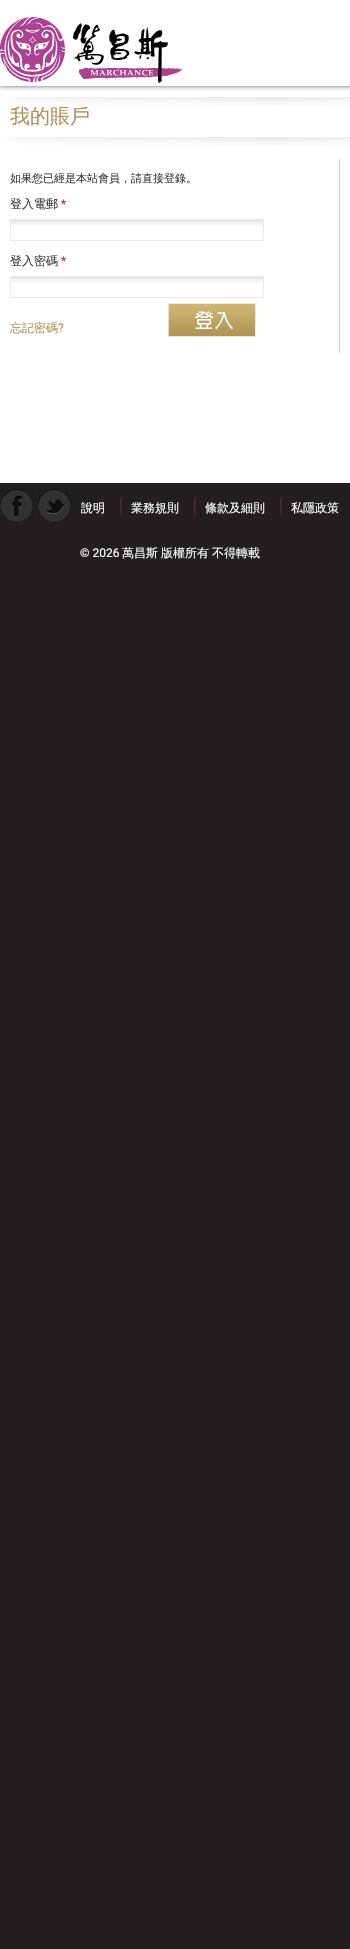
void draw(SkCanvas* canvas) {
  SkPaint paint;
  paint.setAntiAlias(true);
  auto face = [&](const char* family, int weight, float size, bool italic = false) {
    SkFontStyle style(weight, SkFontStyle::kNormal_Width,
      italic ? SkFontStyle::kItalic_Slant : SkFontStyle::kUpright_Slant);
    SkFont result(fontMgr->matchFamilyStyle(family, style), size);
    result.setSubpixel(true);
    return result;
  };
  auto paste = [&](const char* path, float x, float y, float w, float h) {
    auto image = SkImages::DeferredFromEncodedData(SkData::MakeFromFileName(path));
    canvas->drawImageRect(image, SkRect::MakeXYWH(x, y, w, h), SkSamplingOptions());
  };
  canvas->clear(0xff231f20);
  paint.setColor(0xffffffff);
  canvas->drawRect(SkRect::MakeXYWH(0, 0, 350, 483), paint);
  canvas->save();
  canvas->clipRect(SkRect::MakeXYWH(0, 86, 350, 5));
  paint.setColor(0xff666666);
  paint.setMaskFilter(SkMaskFilter::MakeBlur(kNormal_SkBlurStyle, 2.5f));
  canvas->drawRect(SkRect::MakeXYWH(0, 0, 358, 86), paint);
  paint.setMaskFilter(nullptr);
  canvas->restore();
  paste("img/1.png", 0, 17, 182, 66);
  paste("img/2.png", 7, 97, 343, 9);
  paste("img/2.png", 7, 137, 343, 9);
  paint.setColor(0xffcccccc);
  canvas->drawRect(SkRect::MakeXYWH(339, 159, 1, 194), paint);
  paste("img/3.png", 11, 220, 252, 6);
  paint.setStroke(true);
  paint.setStrokeWidth(1);
  paint.setColor(0xffeaeaea);
  canvas->drawRect(SkRect::MakeXYWH(10.5f, 219.5f, 253, 21), paint);
  paste("img/3.png", 11, 277, 252, 6);
  canvas->drawRect(SkRect::MakeXYWH(10.5f, 276.5f, 253, 21), paint);
  paste("img/4.png", 168, 303, 88, 34);
  paste("img/5.png", 1, 489, 32, 32);
  paste("img/6.png", 38, 489, 32, 32);
  paste("img/7.png", 118, 495, 6, 25);
  paste("img/7.png", 192, 495, 6, 25);
  paste("img/7.png", 278, 495, 6, 25);
  auto f0 = face("WenQuanYi Zen Hei", 500, 20);
  paint.setStroke(false);
  paint.setColor(0xffb09158);
  canvas->drawString("我的賬戶", 10, 123, f0, paint);
  auto f1 = face("WenQuanYi Zen Hei", 500, 11);
  paint.setColor(0xff3b3b3b);
  canvas->drawString("如果您已經是本站會員，請直接登錄。", 10, 182, f1, paint);
  auto f2 = face("WenQuanYi Zen Hei", 500, 12);
  canvas->drawString("登入電郵", 10, 208, f2, paint);
  auto f3 = face("Roboto", 400, 12);
  paint.setColor(0xffac3238);
  canvas->drawString("*", 61, 208, f3, paint);
  paint.setColor(0xff3b3b3b);
  canvas->drawString("登入密碼", 10, 265, f2, paint);
  paint.setColor(0xffac3238);
  canvas->drawString("*", 61, 265, f3, paint);
  paint.setColor(0xffb09158);
  canvas->drawString("忘記密碼", 10, 332, f2, paint);
  canvas->drawString("?", 58, 332, f3, paint);
  paint.setColor(0xffffffff);
  {
    const struct { const char* s; float x, y; } items[] = {
      {"說明", 81, 512},
      {"業務規則", 131, 512},
      {"條款及細則", 205, 512},
      {"私隱政策", 291, 512},
    };
    for (auto [s, x, y] : items) {
      canvas->drawString(s, x, y, f2, paint);
    }
  }
  canvas->drawString("© 2026", 80, 557, f3, paint);
  {
    const struct { const char* s; float x, y; } items[] = {
      {"萬昌斯", 122, 557},
      {"版權所有", 161, 557},
      {"不得轉載", 212, 557},
    };
    for (auto [s, x, y] : items) {
      canvas->drawString(s, x, y, f2, paint);
    }
  }
}
